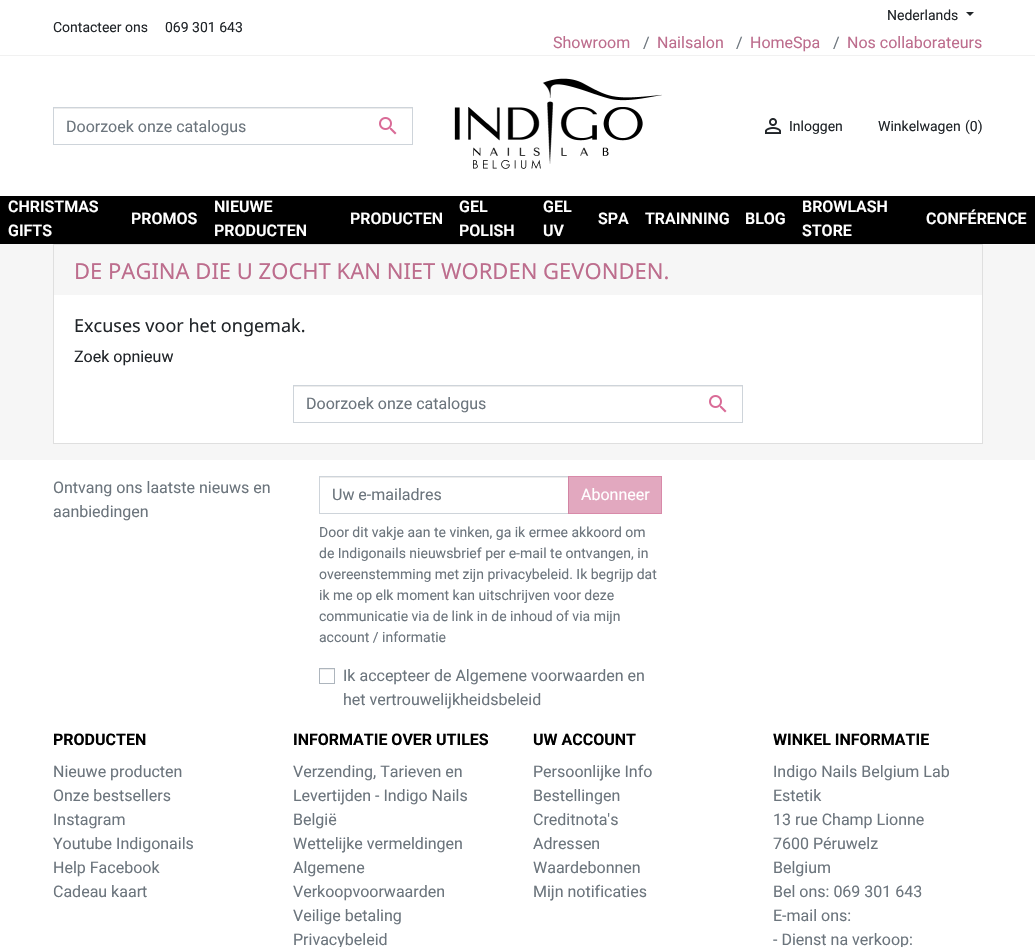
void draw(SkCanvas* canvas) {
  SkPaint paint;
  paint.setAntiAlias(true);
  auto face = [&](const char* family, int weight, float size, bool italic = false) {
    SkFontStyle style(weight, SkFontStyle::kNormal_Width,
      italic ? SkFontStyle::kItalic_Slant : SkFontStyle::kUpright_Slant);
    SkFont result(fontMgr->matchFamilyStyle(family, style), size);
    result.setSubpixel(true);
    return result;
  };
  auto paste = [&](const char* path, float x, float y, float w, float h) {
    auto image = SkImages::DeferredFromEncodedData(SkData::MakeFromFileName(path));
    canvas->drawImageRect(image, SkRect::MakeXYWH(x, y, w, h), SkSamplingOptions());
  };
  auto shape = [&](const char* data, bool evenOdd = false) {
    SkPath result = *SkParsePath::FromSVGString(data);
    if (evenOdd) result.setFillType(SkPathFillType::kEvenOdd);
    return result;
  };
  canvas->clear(0xfff6f6f6);
  paint.setColor(0xffffffff);
  canvas->drawRect(SkRect::MakeXYWH(0, 0, 1035, 196), paint);
  paint.setColor(0xfff1f1f1);
  canvas->drawRect(SkRect::MakeXYWH(0, 55, 1035, 1), paint);
  paint.setColor(0xff212529);
  canvas->drawPath(shape("M966 12H974L970 16Z"), paint);
  paint.setColor(0xffececec);
  canvas->drawRect(SkRect::MakeXYWH(54, 108, 358, 1), paint);
  paint.setStroke(true);
  paint.setStrokeWidth(1);
  paint.setColor(0xffced4da);
  canvas->drawRect(SkRect::MakeXYWH(53.5f, 107.5f, 359, 37), paint);
  paste("img/1.png", 379, 117, 18, 18);
  paste("img/2.png", 454, 78, 208, 91);
  paste("img/3.png", 765, 118, 16, 16);
  paint.setStroke(false);
  paint.setColor(0xff000000);
  canvas->drawRect(SkRect::MakeXYWH(0, 196, 1035, 48), paint);
  paint.setColor(0xffffffff);
  canvas->drawRect(SkRect::MakeXYWH(54, 295, 928, 148), paint);
  paint.setStroke(true);
  paint.setColor(0xffdfdfdf);
  canvas->drawRect(SkRect::MakeXYWH(53.5f, 244.5f, 929, 199), paint);
  paint.setStroke(false);
  paint.setColor(0xffececec);
  canvas->drawRect(SkRect::MakeXYWH(294, 386, 448, 1), paint);
  paint.setStroke(true);
  paint.setColor(0xffced4da);
  canvas->drawRect(SkRect::MakeXYWH(293.5f, 385.5f, 449, 37), paint);
  paste("img/1.png", 709, 395, 18, 18);
  paint.setStroke(false);
  paint.setColor(0xffffffff);
  canvas->drawRect(SkRect::MakeXYWH(0, 460, 1035, 487), paint);
  paint.setColor(0xffececec);
  canvas->drawRect(SkRect::MakeXYWH(320, 477, 248, 1), paint);
  paint.setStroke(true);
  paint.setColor(0xffced4da);
  canvas->drawRect(SkRect::MakeXYWH(319.5f, 476.5f, 249, 37), paint);
  paint.setStroke(false);
  paint.setColor(0xa6d3799d);
  canvas->drawRect(SkRect::MakeXYWH(568, 476, 94, 38), paint);
  paint.setStroke(true);
  canvas->drawRect(SkRect::MakeXYWH(568.5f, 476.5f, 93, 37), paint);
  paint.setStroke(false);
  paint.setColor(0xffececec);
  canvas->drawRect(SkRect::MakeXYWH(320, 669, 14, 1), paint);
  paint.setStroke(true);
  paint.setColor(0xffadb5bd);
  canvas->drawRect(SkRect::MakeXYWH(319.5f, 668.5f, 15, 15), paint);
  auto f0 = face("Roboto", 400, 14);
  paint.setStroke(false);
  paint.setColor(0xff212529);
  {
    const struct { const char* s; float x, y; } items[] = {
      {"Contacteer ons", 53, 32},
      {"069 301 643", 165, 32},
      {"Nederlands", 887, 20},
    };
    for (auto [s, x, y] : items) {
      canvas->drawString(s, x, y, f0, paint);
    }
  }
  auto f1 = face("Roboto", 400, 16);
  paint.setColor(0xffbd6d8d);
  canvas->drawString("Showroom", 553, 48, f1, paint);
  paint.setColor(0xff6c757d);
  canvas->drawString("/", 643, 48, f1, paint);
  paint.setColor(0xffbd6d8d);
  canvas->drawString("Nailsalon", 657, 48, f1, paint);
  paint.setColor(0xff6c757d);
  canvas->drawString("/", 736, 48, f1, paint);
  paint.setColor(0xffbd6d8d);
  canvas->drawString("HomeSpa", 750, 48, f1, paint);
  paint.setColor(0xff6c757d);
  canvas->drawString("/", 833, 48, f1, paint);
  paint.setColor(0xffbd6d8d);
  canvas->drawString("Nos collaborateurs", 847, 48, f1, paint);
  paint.setColor(0xff6c757d);
  canvas->drawString("Doorzoek onze catalogus", 66, 132, f1, paint);
  paint.setColor(0xff212529);
  {
    const struct { const char* s; float x, y; } items[] = {
      {"Inloggen", 789, 131},
      {"Winkelwagen", 878, 131},
      {"(0)", 965, 131},
    };
    for (auto [s, x, y] : items) {
      canvas->drawString(s, x, y, f0, paint);
    }
  }
  auto f2 = face("Roboto", 600, 16);
  paint.setColor(0xffffffff);
  {
    const struct { const char* s; float x, y; } items[] = {
      {"CHRISTMAS", 8, 212},
      {"GIFTS", 8, 236},
      {"PROMOS", 131, 224},
      {"NIEUWE", 214, 212},
      {"PRODUCTEN", 214, 236},
      {"PRODUCTEN", 350, 224},
      {"GEL", 459, 212},
      {"POLISH", 459, 236},
      {"GEL", 543, 212},
      {"UV", 543, 236},
      {"SPA", 598, 224},
      {"TRAINNING", 645, 224},
      {"BLOG", 745, 224},
      {"BROWLASH", 802, 212},
      {"STORE", 802, 236},
      {"CONFÉRENCE", 926, 224},
    };
    for (auto [s, x, y] : items) {
      canvas->drawString(s, x, y, f2, paint);
    }
  }
  auto f3 = face("Noto Sans", 400, 22);
  paint.setColor(0xffbd6d8d);
  canvas->drawString("DE PAGINA DIE U ZOCHT KAN NIET WORDEN GEVONDEN.", 74, 279, f3, paint);
  auto f4 = face("Noto Sans", 400, 18);
  paint.setColor(0xff212529);
  canvas->drawString("Excuses voor het ongemak.", 74, 332, f4, paint);
  canvas->drawString("Zoek opnieuw", 74, 362, f1, paint);
  paint.setColor(0xff6c757d);
  {
    const struct { const char* s; float x, y; } items[] = {
      {"Doorzoek onze catalogus", 306, 409},
      {"Ontvang ons laatste nieuws en", 53, 493},
      {"aanbiedingen", 53, 517},
      {"Uw e-mailadres", 332, 500},
    };
    for (auto [s, x, y] : items) {
      canvas->drawString(s, x, y, f1, paint);
    }
  }
  paint.setColor(0xffffffff);
  canvas->drawString("Abonneer", 581, 500, f1, paint);
  paint.setColor(0xff6c757d);
  {
    const struct { const char* s; float x, y; } items[] = {
      {"Door dit vakje aan te vinken, ga ik ermee akkoord om", 319, 537},
      {"de Indigonails nieuwsbrief per e-mail te ontvangen, in", 319, 558},
      {"overeenstemming met zijn privacybeleid. Ik begrijp dat", 319, 579},
      {"ik me op elk moment kan uitschrijven voor deze", 319, 600},
      {"communicatie via de link in de inhoud of via mijn", 319, 621},
      {"account / informatie", 319, 642},
    };
    for (auto [s, x, y] : items) {
      canvas->drawString(s, x, y, f0, paint);
    }
  }
  canvas->drawString("Ik accepteer de Algemene voorwaarden en", 343, 681, f1, paint);
  canvas->drawString("het vertrouwelijkheidsbeleid", 343, 705, f1, paint);
  auto f5 = face("Roboto", 700, 16);
  paint.setColor(0xff000000);
  canvas->drawString("PRODUCTEN", 53, 745, f5, paint);
  paint.setColor(0xff6c757d);
  {
    const struct { const char* s; float x, y; } items[] = {
      {"Nieuwe producten", 53, 777},
      {"Onze bestsellers", 53, 801},
      {"Instagram", 53, 825},
      {"Youtube Indigonails", 53, 849},
      {"Help Facebook", 53, 873},
      {"Cadeau kaart", 53, 897},
    };
    for (auto [s, x, y] : items) {
      canvas->drawString(s, x, y, f1, paint);
    }
  }
  paint.setColor(0xff000000);
  canvas->drawString("INFORMATIE OVER UTILES", 293, 745, f5, paint);
  paint.setColor(0xff6c757d);
  {
    const struct { const char* s; float x, y; } items[] = {
      {"Verzending, Tarieven en", 293, 777},
      {"Levertijden - Indigo Nails", 293, 801},
      {"België", 293, 825},
      {"Wettelijke vermeldingen", 293, 849},
      {"Algemene", 293, 873},
      {"Verkoopvoorwaarden", 293, 897},
      {"Veilige betaling", 293, 921},
      {"Privacybeleid", 293, 945},
    };
    for (auto [s, x, y] : items) {
      canvas->drawString(s, x, y, f1, paint);
    }
  }
  paint.setColor(0xff000000);
  canvas->drawString("UW ACCOUNT", 533, 745, f5, paint);
  paint.setColor(0xff6c757d);
  {
    const struct { const char* s; float x, y; } items[] = {
      {"Persoonlijke Info", 533, 777},
      {"Bestellingen", 533, 801},
      {"Creditnota's", 533, 825},
      {"Adressen", 533, 849},
      {"Waardebonnen", 533, 873},
      {"Mijn notificaties", 533, 897},
    };
    for (auto [s, x, y] : items) {
      canvas->drawString(s, x, y, f1, paint);
    }
  }
  paint.setColor(0xff000000);
  canvas->drawString("WINKEL INFORMATIE", 773, 745, f5, paint);
  paint.setColor(0xff6c757d);
  {
    const struct { const char* s; float x, y; } items[] = {
      {"Indigo Nails Belgium Lab", 773, 777},
      {"Estetik", 773, 801},
      {"13 rue Champ Lionne", 773, 825},
      {"7600 Péruwelz", 773, 849},
      {"Belgium", 773, 873},
      {"Bel ons: 069 301 643", 773, 897},
      {"E-mail ons:", 773, 921},
      {"- Dienst na verkoop:", 773, 945},
    };
    for (auto [s, x, y] : items) {
      canvas->drawString(s, x, y, f1, paint);
    }
  }
}
